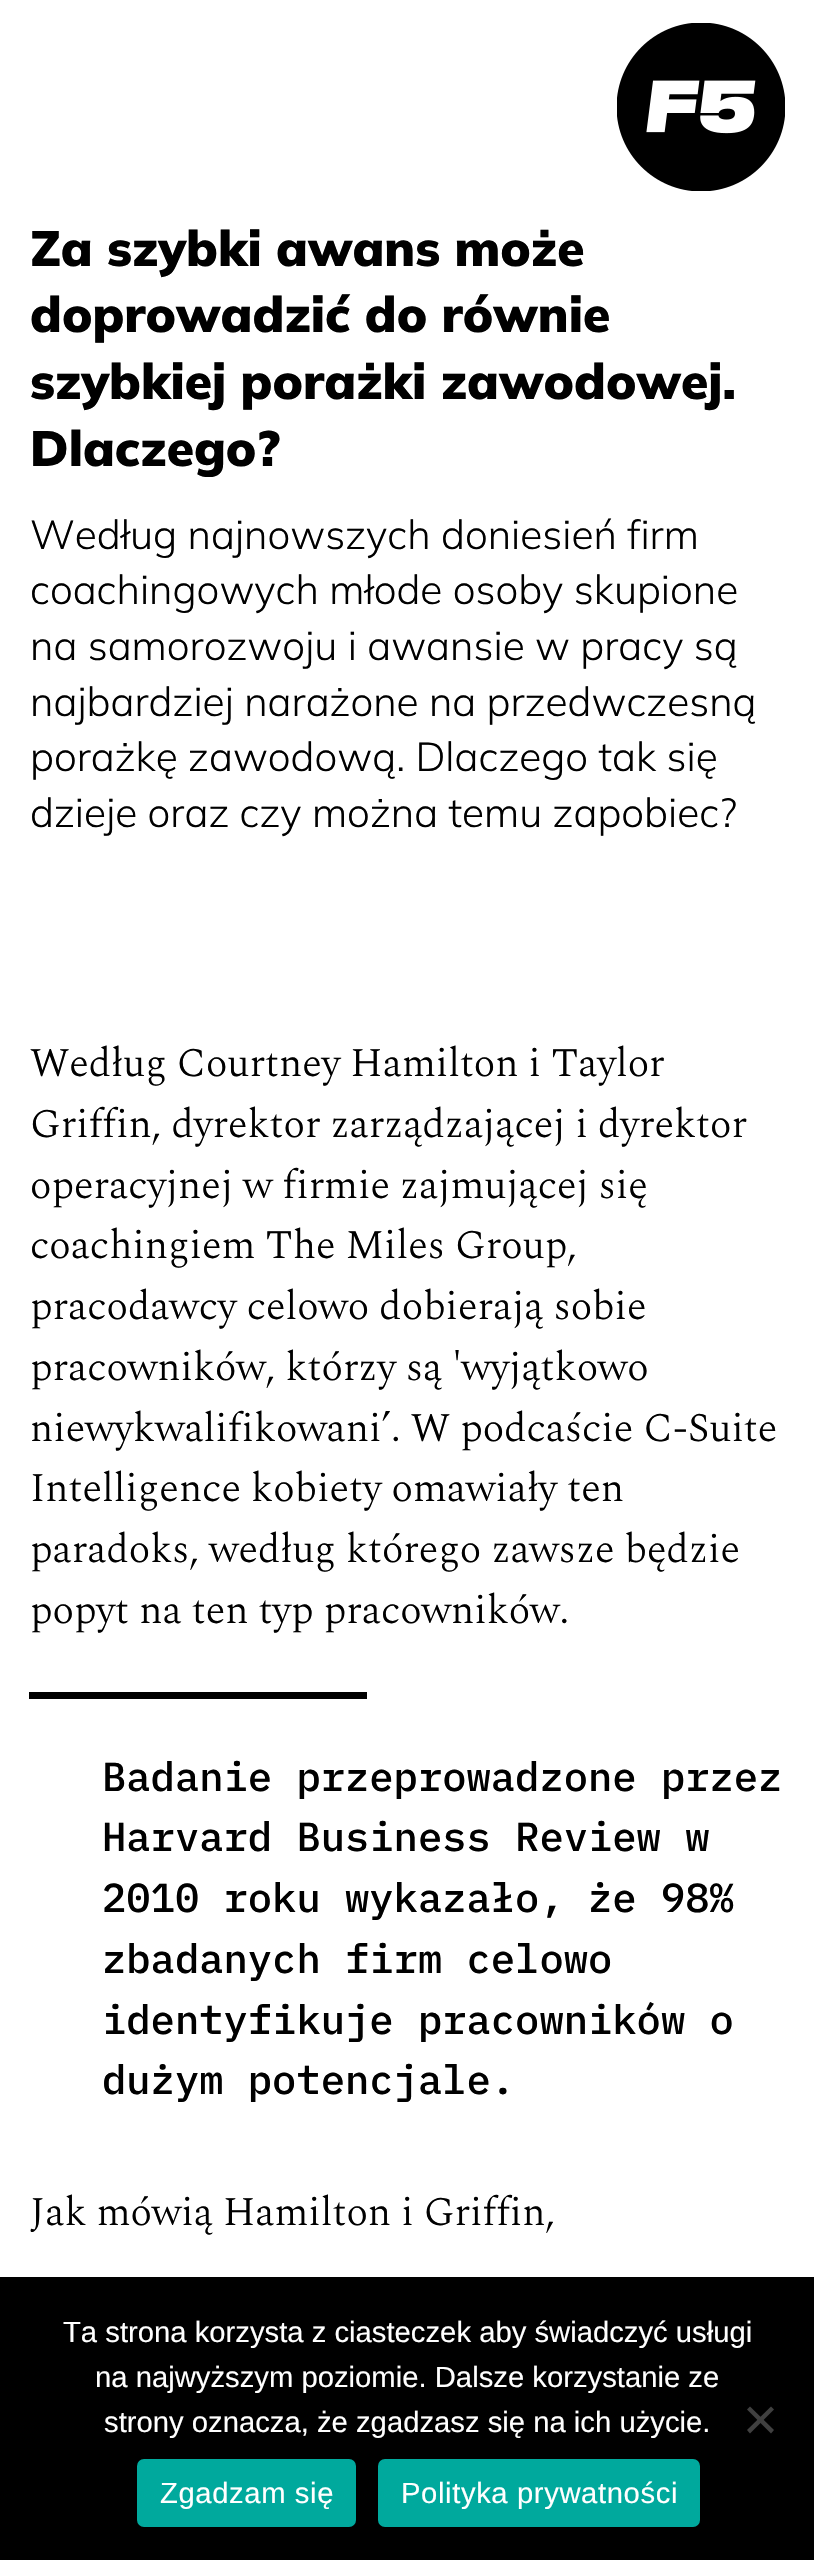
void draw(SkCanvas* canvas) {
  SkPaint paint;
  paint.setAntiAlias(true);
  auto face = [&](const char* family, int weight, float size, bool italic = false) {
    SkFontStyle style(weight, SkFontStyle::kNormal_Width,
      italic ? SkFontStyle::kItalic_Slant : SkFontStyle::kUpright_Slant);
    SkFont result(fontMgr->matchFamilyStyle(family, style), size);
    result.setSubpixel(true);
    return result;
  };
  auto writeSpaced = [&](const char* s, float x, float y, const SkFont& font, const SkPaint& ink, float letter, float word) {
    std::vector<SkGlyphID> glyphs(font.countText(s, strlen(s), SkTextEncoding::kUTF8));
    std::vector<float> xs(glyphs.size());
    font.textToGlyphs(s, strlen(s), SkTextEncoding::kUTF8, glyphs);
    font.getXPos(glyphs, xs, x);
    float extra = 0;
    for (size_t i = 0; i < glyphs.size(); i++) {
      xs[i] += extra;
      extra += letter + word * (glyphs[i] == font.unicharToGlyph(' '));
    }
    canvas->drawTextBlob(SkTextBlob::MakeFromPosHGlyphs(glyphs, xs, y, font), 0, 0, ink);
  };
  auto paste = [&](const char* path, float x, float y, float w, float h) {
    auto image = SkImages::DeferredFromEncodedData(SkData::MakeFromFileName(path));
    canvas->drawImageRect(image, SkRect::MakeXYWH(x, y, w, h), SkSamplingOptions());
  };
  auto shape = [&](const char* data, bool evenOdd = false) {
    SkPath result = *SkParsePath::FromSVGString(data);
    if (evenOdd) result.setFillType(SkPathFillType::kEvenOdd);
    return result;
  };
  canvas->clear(0xffffffff);
  paste("img/1.png", 617, 23, 168, 168);
  paint.setColor(0xff000000);
  canvas->drawRect(SkRect::MakeXYWH(29, 1692, 338, 7), paint);
  canvas->drawRect(SkRect::MakeXYWH(0, 2277, 814, 283), paint);
  paint.setColor(0xff404040);
  canvas->drawPath(shape("M771 2406.5L774 2409.5L750 2433.5L747 2430Z"), paint);
  canvas->drawPath(shape("M747 2409.5L750 2406.5L774 2430L771 2433.5Z"), paint);
  paint.setColor(0xff00a99d);
  canvas->drawRoundRect(SkRect::MakeXYWH(137, 2459, 219, 68), 7, 7, paint);
  canvas->drawRoundRect(SkRect::MakeXYWH(378, 2459, 322, 68), 7, 7, paint);
  auto f0 = face("Mulish", 900, 49.5f);
  paint.setColor(0xff000000);
  {
    const struct { const char* s; float x, y; } items[] = {
      {"Za szybki awans może", 30, 266},
      {"doprowadzić do równie", 30, 332},
      {"szybkiej porażki zawodowej.", 30, 399},
      {"Dlaczego?", 30, 466},
    };
    for (auto [s, x, y] : items) {
      canvas->drawString(s, x, y, f0, paint);
    }
  }
  auto f1 = face("Mulish", 300, 40.5f);
  {
    const struct { const char* s; float x, y; } items[] = {
      {"Według najnowszych doniesień firm", 30, 549},
      {"coachingowych młode osoby skupione", 30, 604},
      {"na samorozwoju i awansie w pracy są", 30, 660},
      {"najbardziej narażone na przedwczesną", 30, 716},
      {"porażkę zawodową. Dlaczego tak się", 30, 771},
      {"dzieje oraz czy można temu zapobiec?", 30, 827},
    };
    for (auto [s, x, y] : items) {
      canvas->drawString(s, x, y, f1, paint);
    }
  }
  auto f2 = face("Spectral", 300, 40.5f);
  {
    const struct { const char* s; float x, y; } items[] = {
      {"Według Courtney Hamilton i Taylor", 30, 1076},
      {"Griffin, dyrektor zarządzającej i dyrektor", 30, 1137},
      {"operacyjnej w firmie zajmującej się", 30, 1198},
      {"coachingiem The Miles Group,", 30, 1258},
      {"pracodawcy celowo dobierają sobie", 30, 1319},
      {"pracowników, którzy są 'wyjątkowo", 30, 1380},
      {"niewykwalifikowani’. W podcaście C-Suite", 30, 1441},
      {"Intelligence kobiety omawiały ten", 30, 1501},
      {"paradoks, według którego zawsze będzie", 30, 1562},
      {"popyt na ten typ pracowników.", 30, 1623},
    };
    for (auto [s, x, y] : items) {
      canvas->drawString(s, x, y, f2, paint);
    }
  }
  auto f3 = face("IBM Plex Mono", 500, 40.5f);
  {
    const struct { const char* s; float x, y; } items[] = {
      {"Badanie przeprowadzone przez", 102, 1791},
      {"Harvard Business Review w", 102, 1851},
      {"2010 roku wykazało, że 98%", 102, 1912},
      {"zbadanych firm celowo", 102, 1973},
      {"identyfikuje pracowników o", 102, 2034},
      {"dużym potencjale.", 102, 2094},
    };
    for (auto [s, x, y] : items) {
      canvas->drawString(s, x, y, f3, paint);
    }
  }
  canvas->drawString("Jak mówią Hamilton i Griffin,", 30, 2225, f2, paint);
  auto f4 = face("Liberation Sans", 400, 29.25f);
  paint.setColor(0xffffffff);
  {
    const struct { const char* s; float x, y; } items[] = {
      {"Ta strona korzysta z ciasteczek aby świadczyć usługi", 63, 2342},
      {"na najwyższym poziomie. Dalsze korzystanie ze", 95, 2387},
      {"strony oznacza, że zgadzasz się na ich użycie.", 104, 2432},
    };
    for (auto [s, x, y] : items) {
      canvas->drawString(s, x, y, f4, paint);
    }
  }
  writeSpaced("Zgadzam się", 160, 2503, f4, paint, 0.6f, 0);
  writeSpaced("Polityka prywatności", 401, 2503, f4, paint, 0.6f, 0);
}
